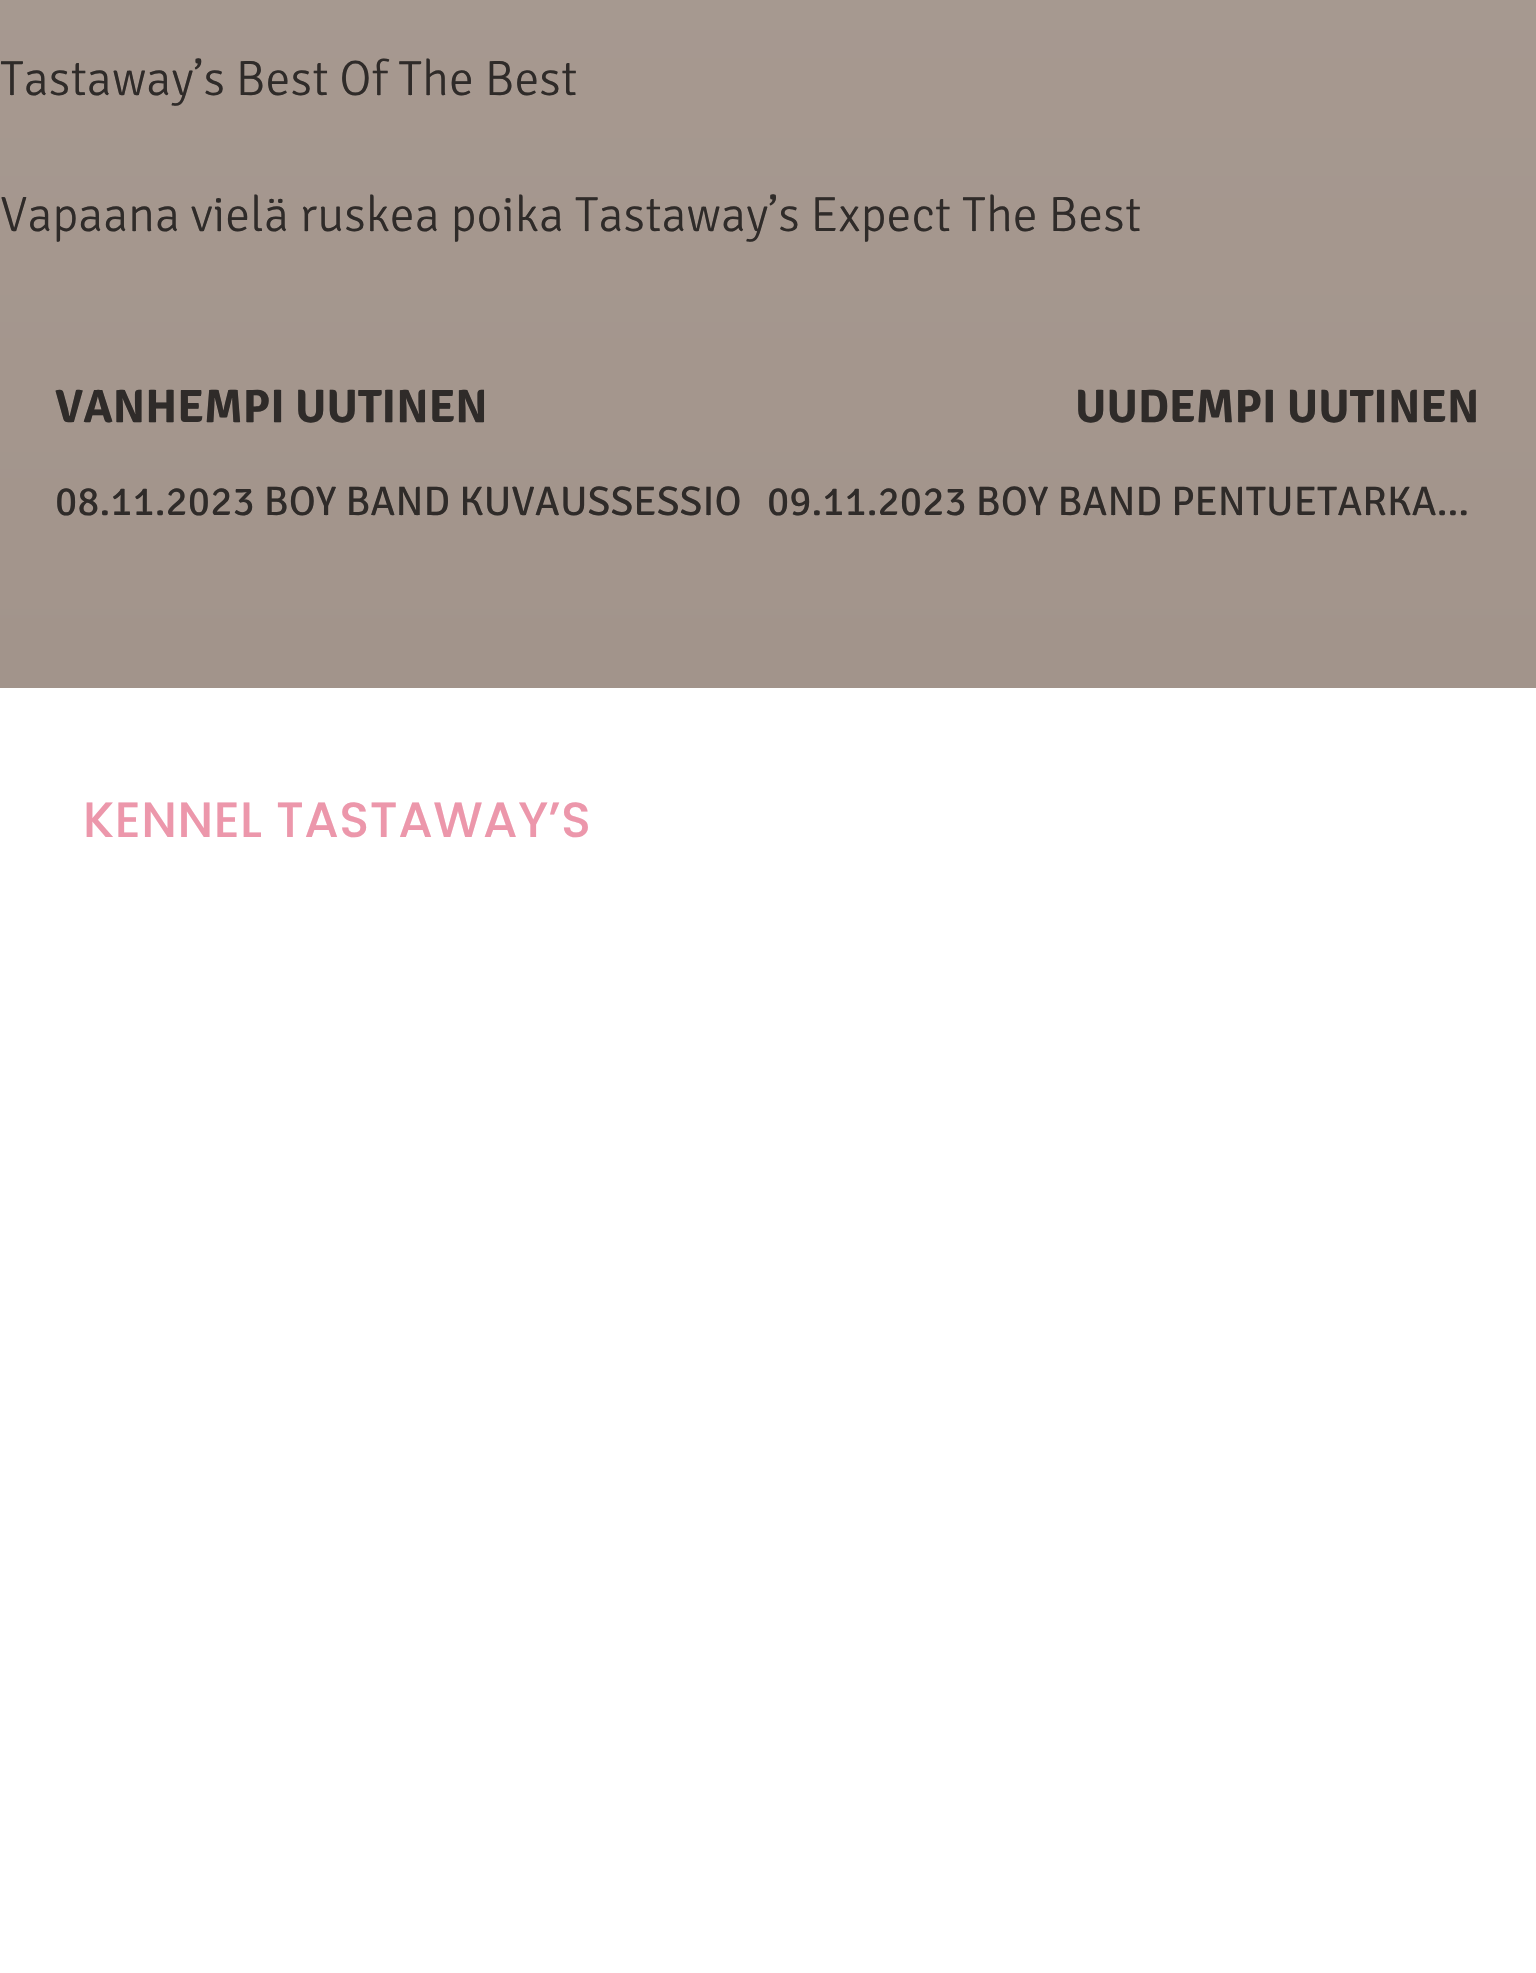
void draw(SkCanvas* canvas) {
  SkPaint paint;
  paint.setAntiAlias(true);
  auto face = [&](const char* family, int weight, float size, bool italic = false) {
    SkFontStyle style(weight, SkFontStyle::kNormal_Width,
      italic ? SkFontStyle::kItalic_Slant : SkFontStyle::kUpright_Slant);
    SkFont result(fontMgr->matchFamilyStyle(family, style), size);
    result.setSubpixel(true);
    return result;
  };
  auto writeSpaced = [&](const char* s, float x, float y, const SkFont& font, const SkPaint& ink, float letter, float word) {
    std::vector<SkGlyphID> glyphs(font.countText(s, strlen(s), SkTextEncoding::kUTF8));
    std::vector<float> xs(glyphs.size());
    font.textToGlyphs(s, strlen(s), SkTextEncoding::kUTF8, glyphs);
    font.getXPos(glyphs, xs, x);
    float extra = 0;
    for (size_t i = 0; i < glyphs.size(); i++) {
      xs[i] += extra;
      extra += letter + word * (glyphs[i] == font.unicharToGlyph(' '));
    }
    canvas->drawTextBlob(SkTextBlob::MakeFromPosHGlyphs(glyphs, xs, y, font), 0, 0, ink);
  };
  canvas->clear(0xffffffff);
  {
    const SkColor colors[] = {0xffcbc0b9, 0xffa2948b};
    const float stops[] = {0, 1};
    const SkPoint ends[] = {{769, -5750}, {769, 688}};
    paint.setShader(SkGradientShader::MakeLinear(ends, colors, stops, 2, SkTileMode::kClamp));
    paint.setAlpha(255);
  }
  canvas->drawRect(SkRect::MakeXYWH(0, 0, 1536, 688), paint);
  auto f0 = face("Signika Negative", 300, 49.5f);
  paint.setShader(nullptr);
  paint.setColor(0xff2f2b29);
  canvas->drawString("Tastaway’s Best Of The Best", 0, 95, f0, paint);
  canvas->drawString("Vapaana vielä ruskea poika Tastaway’s Expect The Best", 0, 231, f0, paint);
  auto f1 = face("Signika Negative", 700, 46.75f);
  canvas->drawString("VANHEMPI UUTINEN", 55, 422, f1, paint);
  auto f2 = face("Signika Negative", 400, 41.25f);
  canvas->drawString("08.11.2023 BOY BAND KUVAUSSESSIO", 55, 515, f2, paint);
  canvas->drawString("UUDEMPI UUTINEN", 1075, 422, f1, paint);
  canvas->drawString("09.11.2023 BOY BAND PENTUETARKA…", 767, 515, f2, paint);
  auto f3 = face("Poppins", 500, 49.5f);
  paint.setColor(0xffec97ab);
  writeSpaced("KENNEL TASTAWAY’S", 83, 837, f3, paint, 0.5f, 0);
}
